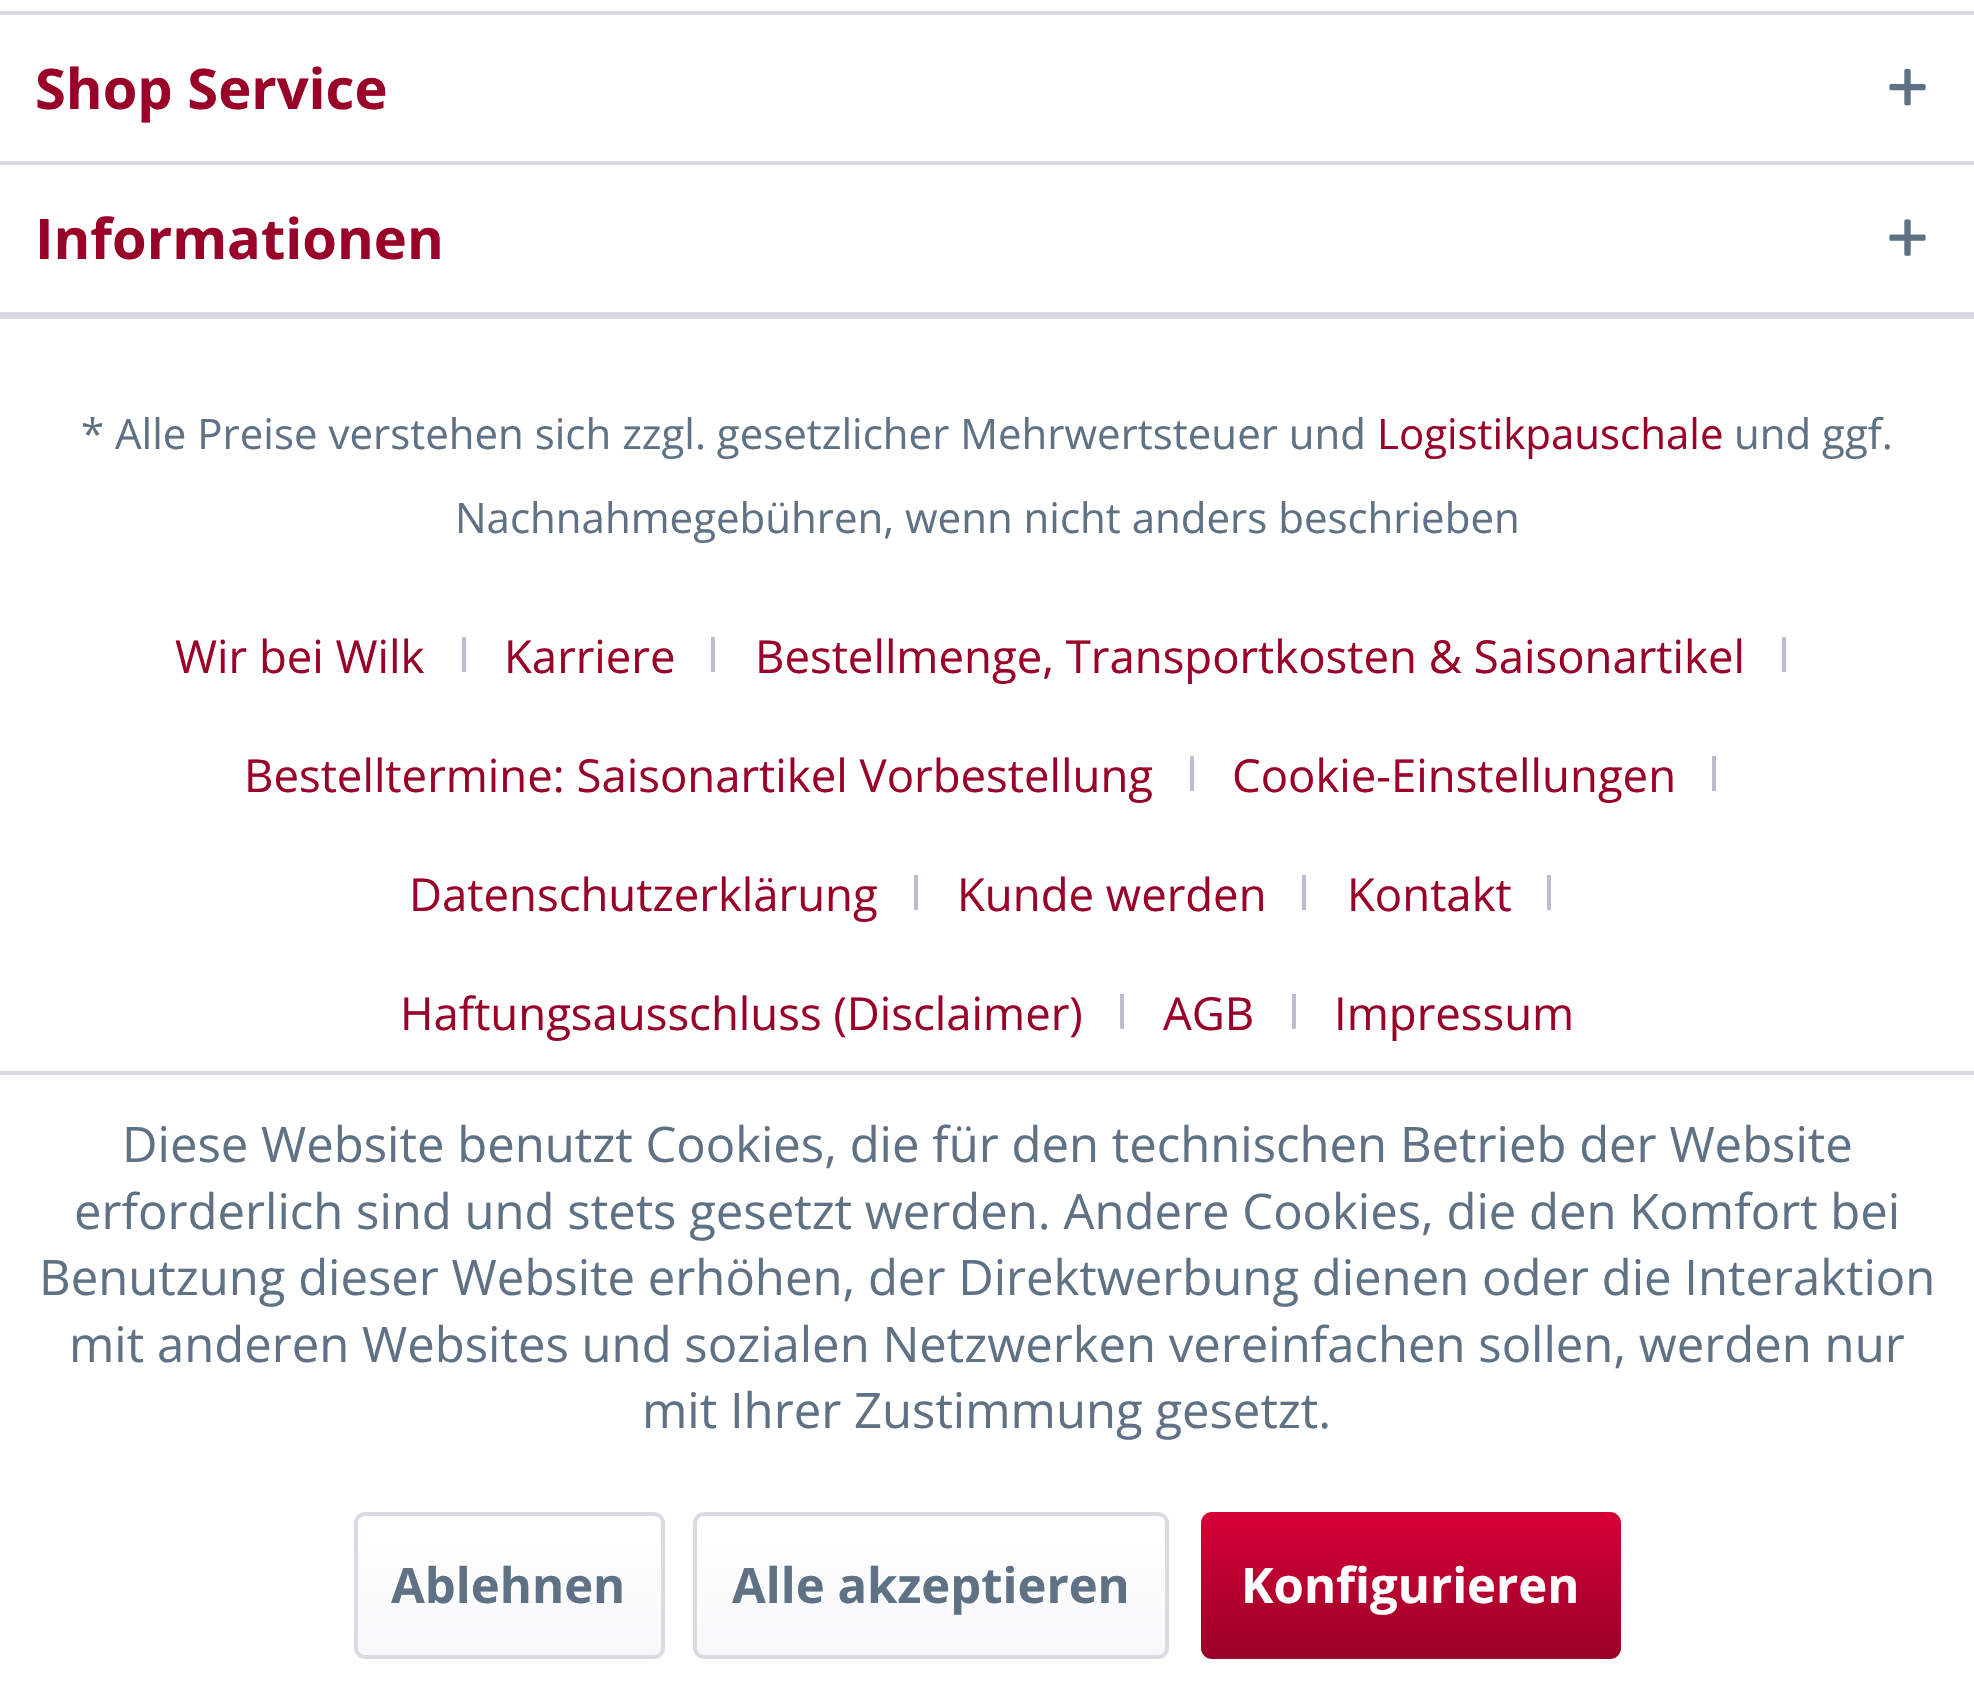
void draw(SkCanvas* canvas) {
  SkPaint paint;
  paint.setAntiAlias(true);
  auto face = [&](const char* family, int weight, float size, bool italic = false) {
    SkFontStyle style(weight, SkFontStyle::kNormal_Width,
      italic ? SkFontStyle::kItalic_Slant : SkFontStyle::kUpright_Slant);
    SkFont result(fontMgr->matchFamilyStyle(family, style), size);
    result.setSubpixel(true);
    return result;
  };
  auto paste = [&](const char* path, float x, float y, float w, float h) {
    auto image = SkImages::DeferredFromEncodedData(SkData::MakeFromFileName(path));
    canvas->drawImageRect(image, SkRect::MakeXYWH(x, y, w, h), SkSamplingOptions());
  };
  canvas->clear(0xffffffff);
  paint.setColor(0xffdadae5);
  canvas->drawRect(SkRect::MakeXYWH(0, 11, 1974, 4), paint);
  paste("img/1.png", 1889, 68, 37, 38);
  canvas->drawRect(SkRect::MakeXYWH(0, 161, 1974, 4), paint);
  paste("img/2.png", 1889, 219, 37, 37);
  {
    const struct { float x, y, w, h; SkColor color; } items[] = {
      {0, 312, 1974, 7, 0xffdadae5},
      {462, 637, 4, 35, 0xffbcbcd0},
      {711, 637, 4, 35, 0xffbcbcd0},
      {1782, 637, 4, 35, 0xffbcbcd0},
      {1190, 756, 4, 35, 0xffbcbcd0},
      {1712, 756, 4, 35, 0xffbcbcd0},
      {914, 875, 4, 35, 0xffbcbcd0},
      {1302, 875, 4, 35, 0xffbcbcd0},
      {1547, 875, 4, 35, 0xffbcbcd0},
      {1120, 994, 4, 35, 0xffbcbcd0},
      {1292, 994, 4, 35, 0xffbcbcd0},
      {0, 1071, 1974, 4, 0xffdadae5},
    };
    for (auto [x, y, w, h, color] : items) {
      paint.setColor(color);
      canvas->drawRect(SkRect::MakeXYWH(x, y, w, h), paint);
    }
  }
  {
    const SkColor colors[] = {0xffffffff, 0xfff8f8fa};
    const float stops[] = {0, 1};
    const SkPoint ends[] = {{509, 1516}, {509, 1656}};
    paint.setShader(SkGradientShader::MakeLinear(ends, colors, stops, 2, SkTileMode::kClamp));
    paint.setAlpha(255);
  }
  canvas->drawRoundRect(SkRect::MakeXYWH(357, 1516, 305, 140), 7, 7, paint);
  paint.setStroke(true);
  paint.setStrokeWidth(4);
  paint.setShader(nullptr);
  paint.setColor(0xffdadae5);
  canvas->drawRoundRect(SkRect::MakeXYWH(356, 1514, 307, 143), 9, 9, paint);
  paint.setStroke(false);
  {
    const SkColor colors[] = {0xffffffff, 0xfff8f8fa};
    const float stops[] = {0, 1};
    const SkPoint ends[] = {{931, 1516}, {931, 1656}};
    paint.setShader(SkGradientShader::MakeLinear(ends, colors, stops, 2, SkTileMode::kClamp));
    paint.setAlpha(255);
  }
  canvas->drawRoundRect(SkRect::MakeXYWH(697, 1516, 469, 140), 7, 7, paint);
  paint.setStroke(true);
  paint.setShader(nullptr);
  paint.setColor(0xffdadae5);
  canvas->drawRoundRect(SkRect::MakeXYWH(695, 1514, 472, 143), 9, 9, paint);
  paint.setStroke(false);
  {
    const SkColor colors[] = {0xffd70037, 0xff990128};
    const float stops[] = {0, 1};
    const SkPoint ends[] = {{1411, 1512}, {1411, 1659}};
    paint.setShader(SkGradientShader::MakeLinear(ends, colors, stops, 2, SkTileMode::kClamp));
    paint.setAlpha(255);
  }
  canvas->drawRoundRect(SkRect::MakeXYWH(1201, 1512, 420, 147), 11, 11, paint);
  auto f0 = face("Open Sans", 700, 56);
  paint.setShader(nullptr);
  paint.setColor(0xff990128);
  canvas->drawString("Shop Service", 35, 109, f0, paint);
  canvas->drawString("Informationen", 35, 259, f0, paint);
  auto f1 = face("Open Sans", 400, 42);
  paint.setColor(0xff5f7285);
  canvas->drawString("* Alle Preise verstehen sich zzgl. gesetzlicher Mehrwertsteuer und", 81, 449, f1, paint);
  paint.setColor(0xff990128);
  canvas->drawString("Logistikpauschale", 1377, 449, f1, paint);
  paint.setColor(0xff5f7285);
  canvas->drawString("und ggf.", 1734, 449, f1, paint);
  canvas->drawString("Nachnahmegebühren, wenn nicht anders beschrieben", 455, 533, f1, paint);
  auto f2 = face("Open Sans", 400, 45.5f);
  paint.setColor(0xff990128);
  {
    const struct { const char* s; float x, y; } items[] = {
      {"Wir bei Wilk", 175, 673},
      {"Karriere", 504, 673},
      {"Bestellmenge, Transportkosten & Saisonartikel", 755, 673},
      {"Bestelltermine: Saisonartikel Vorbestellung", 244, 792},
      {"Cookie-Einstellungen", 1232, 792},
      {"Datenschutzerklärung", 409, 911},
      {"Kunde werden", 957, 911},
      {"Kontakt", 1347, 911},
      {"Haftungsausschluss (Disclaimer)", 400, 1030},
      {"AGB", 1163, 1030},
      {"Impressum", 1334, 1030},
    };
    for (auto [s, x, y] : items) {
      canvas->drawString(s, x, y, f2, paint);
    }
  }
  auto f3 = face("Open Sans", 400, 49);
  paint.setColor(0xff5f7285);
  {
    const struct { const char* s; float x, y; } items[] = {
      {"Diese Website benutzt Cookies, die für den technischen Betrieb der Website", 122, 1162},
      {"erforderlich sind und stets gesetzt werden. Andere Cookies, die den Komfort bei", 74, 1229},
      {"Benutzung dieser Website erhöhen, der Direktwerbung dienen oder die Interaktion", 39, 1295},
      {"mit anderen Websites und sozialen Netzwerken vereinfachen sollen, werden nur", 69, 1362},
      {"mit Ihrer Zustimmung gesetzt.", 642, 1428},
    };
    for (auto [s, x, y] : items) {
      canvas->drawString(s, x, y, f3, paint);
    }
  }
  auto f4 = face("Open Sans", 700, 49);
  canvas->drawString("Ablehnen", 391, 1603, f4, paint);
  canvas->drawString("Alle akzeptieren", 732, 1603, f4, paint);
  paint.setColor(0xffffffff);
  canvas->drawString("Konfigurieren", 1241, 1603, f4, paint);
}
